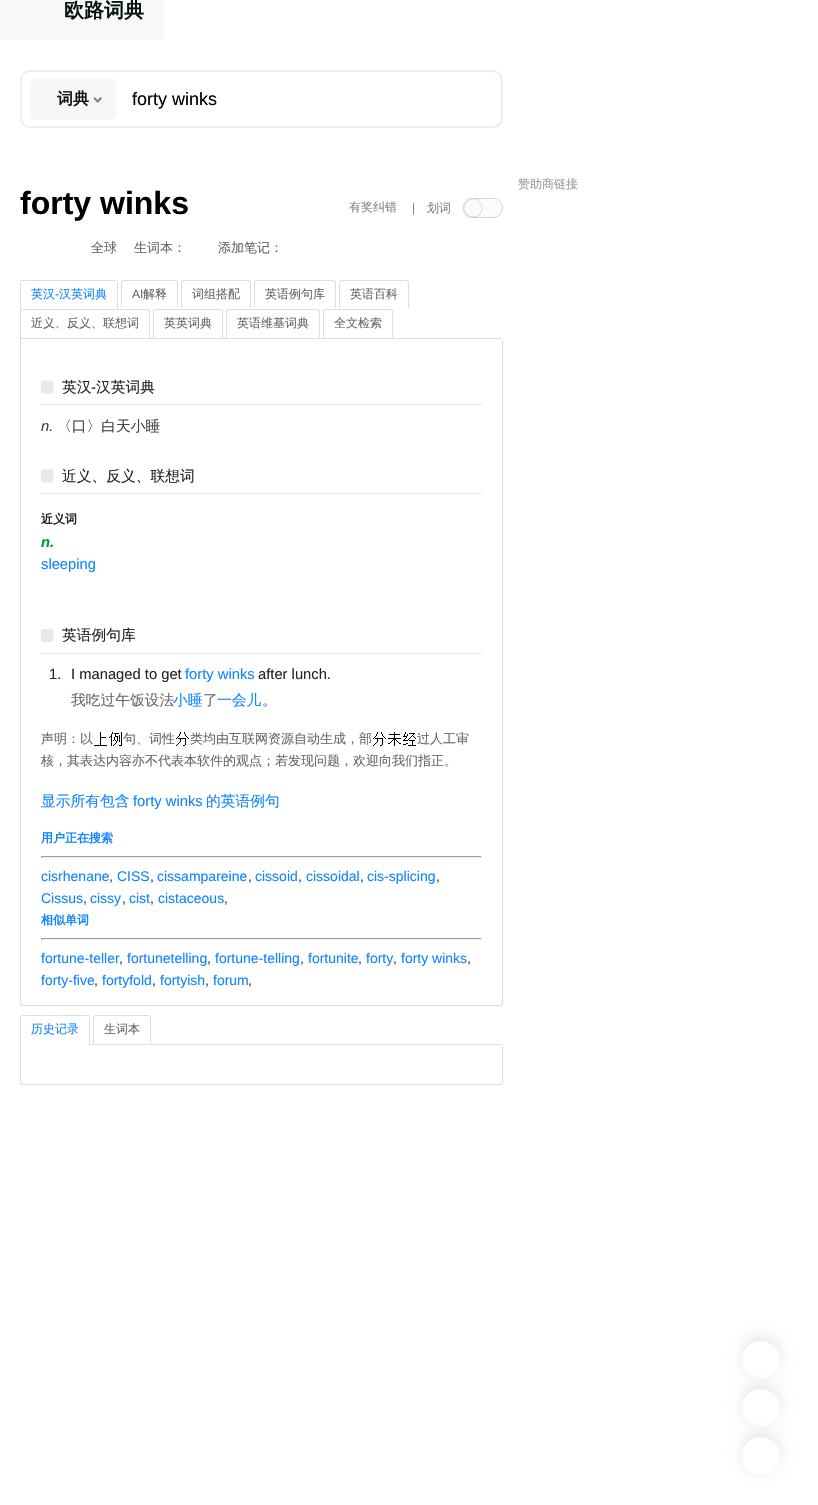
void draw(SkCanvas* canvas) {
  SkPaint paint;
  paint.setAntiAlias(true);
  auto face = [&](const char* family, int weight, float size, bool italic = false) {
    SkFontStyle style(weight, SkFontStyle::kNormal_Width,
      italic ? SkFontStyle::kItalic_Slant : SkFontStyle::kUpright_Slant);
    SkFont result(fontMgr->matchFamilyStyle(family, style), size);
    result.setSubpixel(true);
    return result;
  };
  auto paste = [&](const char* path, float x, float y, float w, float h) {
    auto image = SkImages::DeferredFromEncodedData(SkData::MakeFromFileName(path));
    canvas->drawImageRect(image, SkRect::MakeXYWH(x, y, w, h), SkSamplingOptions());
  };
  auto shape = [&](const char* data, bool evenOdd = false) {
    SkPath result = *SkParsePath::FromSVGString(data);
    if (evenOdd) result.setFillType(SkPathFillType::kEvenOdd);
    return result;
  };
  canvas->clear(0xffffffff);
  paint.setColor(0xfff8f8f8);
  canvas->drawRect(SkRect::MakeXYWH(0, 0, 164, 40), paint);
  paint.setStroke(true);
  paint.setStrokeWidth(2);
  paint.setColor(0xffeeeeee);
  canvas->drawRoundRect(SkRect::MakeXYWH(21, 71, 481, 56), 9, 9, paint);
  paint.setStroke(false);
  paint.setColor(0xfff5f6f7);
  canvas->drawRoundRect(SkRect::MakeXYWH(30, 78, 86, 42), 6, 6, paint);
  paint.setColor(0xff7b7b7c);
  canvas->drawPath(shape("M102 98.5L97.5 103V100L100.5 97Z"), paint);
  paint.setColor(0x80000000);
  canvas->drawPath(shape("M97.5 103L93.5 98.5L94.5 97L97.5 100Z"), paint);
  paint.setColor(0x1a000000);
  paint.setMaskFilter(SkMaskFilter::MakeBlur(kNormal_SkBlurStyle, 7));
  canvas->drawRoundRect(SkRect::MakeXYWH(742, 1337, 38, 38), 19, 19, paint);
  paint.setMaskFilter(nullptr);
  paint.setColor(0xffffffff);
  canvas->drawCircle(761, 1360, 19, paint);
  paint.setColor(0x1a000000);
  paint.setMaskFilter(SkMaskFilter::MakeBlur(kNormal_SkBlurStyle, 7));
  canvas->drawRoundRect(SkRect::MakeXYWH(742, 1385, 38, 38), 19, 19, paint);
  paint.setMaskFilter(nullptr);
  paint.setColor(0xffffffff);
  canvas->drawCircle(761, 1408, 19, paint);
  paint.setColor(0x1a000000);
  paint.setMaskFilter(SkMaskFilter::MakeBlur(kNormal_SkBlurStyle, 7));
  canvas->drawRoundRect(SkRect::MakeXYWH(742, 1433, 38, 38), 19, 19, paint);
  paint.setMaskFilter(nullptr);
  paint.setColor(0xffffffff);
  canvas->drawCircle(761, 1456, 19, paint);
  paste("img/1.png", 463, 198, 40, 20);
  paint.setColor(0xffdddddd);
  canvas->drawRect(SkRect::MakeXYWH(20, 338, 481, 1), paint);
  canvas->drawPath(shape("M23 280H115C117 280 118 281 118 283V309H20V283C20 281 21 280 23 280ZM23 281H115C116 281 117 282 117 283V309H21V283C21 282 22 281 23 281Z", true), paint);
  paint.setColor(0xffffffff);
  canvas->drawRect(SkRect::MakeXYWH(21, 281, 96, 2), paint);
  paint.setColor(0xffdddddd);
  canvas->drawPath(shape("M124 280H175C177 280 178 281 178 283V308H121V283C121 281 122 280 124 280ZM124 281H175C176 281 177 282 177 283V308H122V283C122 282 123 281 124 281Z", true), paint);
  canvas->drawPath(shape("M184 280H248C250 280 251 281 251 283V308H181V283C181 281 182 280 184 280ZM184 281H248C249 281 250 282 250 283V308H182V283C182 282 183 281 184 281Z", true), paint);
  canvas->drawPath(shape("M257 280H333C335 280 336 281 336 283V308H254V283C254 281 255 280 257 280ZM257 281H333C334 281 335 282 335 283V308H255V283C255 282 256 281 257 281Z", true), paint);
  canvas->drawPath(shape("M342 280H406C408 280 409 281 409 283V308H339V283C339 281 340 280 342 280ZM342 281H406C407 281 408 282 408 283V308H340V283C340 282 341 281 342 281Z", true), paint);
  canvas->drawPath(shape("M23 309H147C149 309 150 310 150 312V338H20V312C20 310 21 309 23 309ZM23 310H147C148 310 149 311 149 312V338H21V312C21 311 22 310 23 310Z", true), paint);
  canvas->drawPath(shape("M156 309H220C222 309 223 310 223 312V338H153V312C153 310 154 309 156 309ZM156 310H220C221 310 222 311 222 312V338H154V312C154 311 155 310 156 310Z", true), paint);
  canvas->drawPath(shape("M229 309H317C319 309 320 310 320 312V338H226V312C226 310 227 309 229 309ZM229 310H317C318 310 319 311 319 312V338H227V312C227 311 228 310 229 310Z", true), paint);
  canvas->drawPath(shape("M326 309H390C392 309 393 310 393 312V338H323V312C323 310 324 309 326 309ZM326 310H390C391 310 392 311 392 312V338H324V312C324 311 325 310 326 310Z", true), paint);
  canvas->drawPath(shape("M20 339H500C502 339 503 340 503 342V1003C503 1005 502 1006 500 1006H23C21 1006 20 1005 20 1003ZM21 339H500C501 339 502 340 502 342V1003C502 1004 501 1005 500 1005H23C22 1005 21 1004 21 1003Z", true), paint);
  paint.setColor(0xffe8e9eb);
  canvas->drawRect(SkRect::MakeXYWH(41, 404, 441, 1), paint);
  canvas->save();
  canvas->clipRect(SkRect::MakeXYWH(41, 379, 441, 25));
  canvas->drawPath(shape("M53.5 382.5V390C53.5 395 51 393.5 47 393.5C45.5 393.5 40.5 394.5 40.5 391.5V384C40.5 379.5 43 380.5 47 380.5C49 380.5 53.5 380 53.5 382.5Z"), paint);
  canvas->restore();
  canvas->drawRect(SkRect::MakeXYWH(41, 493, 441, 1), paint);
  canvas->save();
  canvas->clipRect(SkRect::MakeXYWH(41, 467, 441, 26));
  canvas->drawPath(shape("M53.5 471.5V479C53.5 483.5 51 482.5 47 482.5C45.5 482.5 40.5 483.5 40.5 480.5V473C40.5 468 43 469.5 47 469.5C49 469.5 53.5 468.5 53.5 471.5Z"), paint);
  canvas->restore();
  canvas->drawRect(SkRect::MakeXYWH(41, 653, 441, 1), paint);
  canvas->save();
  canvas->clipRect(SkRect::MakeXYWH(41, 627, 441, 26));
  canvas->drawPath(shape("M53.5 631V638.5C53.5 643.5 51 642 47 642C45.5 642 40.5 643 40.5 640V632.5C40.5 628 43 629 47 629C49 629 53.5 628 53.5 631Z"), paint);
  canvas->restore();
  paste("img/2.png", 94, 732, 13, 14);
  paste("img/3.png", 109, 732, 13, 14);
  paste("img/4.png", 176, 732, 13, 14);
  paste("img/4.png", 373, 732, 13, 14);
  paste("img/5.png", 388, 732, 13, 14);
  paste("img/6.png", 403, 732, 13, 14);
  {
    const struct { float x, y, w, h; SkColor color; } items[] = {
      {41, 856, 441, 1, 0xff9f9f9f},
      {481, 856, 1, 2, 0xffeeeeee},
      {41, 857, 441, 1, 0xffeeeeee},
      {41, 856, 1, 2, 0xff9f9f9f},
      {41, 938, 441, 1, 0xff9f9f9f},
      {481, 938, 1, 2, 0xffeeeeee},
      {41, 939, 441, 1, 0xffeeeeee},
      {41, 938, 1, 2, 0xff9f9f9f},
      {90, 1044, 411, 1, 0xffdddddd},
    };
    for (auto [x, y, w, h, color] : items) {
      paint.setColor(color);
      canvas->drawRect(SkRect::MakeXYWH(x, y, w, h), paint);
    }
  }
  canvas->drawPath(shape("M23 1015H87C89 1015 90 1016 90 1018V1045H20V1018C20 1016 21 1015 23 1015ZM23 1016H87C88 1016 89 1017 89 1018V1045H21V1018C21 1017 22 1016 23 1016Z", true), paint);
  paint.setColor(0xffffffff);
  canvas->drawRect(SkRect::MakeXYWH(21, 1016, 68, 2), paint);
  paint.setColor(0xffdddddd);
  canvas->drawPath(shape("M96 1015H148C150 1015 151 1016 151 1018V1044H93V1018C93 1016 94 1015 96 1015ZM96 1016H148C149 1016 150 1017 150 1018V1044H94V1018C94 1017 95 1016 96 1016Z", true), paint);
  canvas->drawPath(shape("M20 1045H500C502 1045 503 1046 503 1048V1082C503 1084 502 1085 500 1085H23C21 1085 20 1084 20 1082ZM21 1045H500C501 1045 502 1046 502 1048V1082C502 1083 501 1084 500 1084H23C22 1084 21 1083 21 1082Z", true), paint);
  auto f0 = face("WenQuanYi Zen Hei", 700, 20);
  paint.setColor(0xff041413);
  canvas->drawString("欧路词典", 64, 17, f0, paint);
  auto f1 = face("WenQuanYi Zen Hei", 700, 16);
  paint.setColor(0xff131415);
  canvas->drawString("词典", 57, 104, f1, paint);
  auto f2 = face("Liberation Sans", 400, 18);
  paint.setColor(0xff000000);
  canvas->drawString("forty winks", 132, 105, f2, paint);
  auto f3 = face("WenQuanYi Zen Hei", 500, 12);
  paint.setColor(0xff999999);
  canvas->drawString("赞助商链接", 518, 188, f3, paint);
  auto f4 = face("Liberation Sans", 700, 32);
  paint.setColor(0xff000000);
  canvas->drawString("forty winks", 20, 214, f4, paint);
  paint.setColor(0xff838383);
  canvas->drawString("有奖纠错", 349, 211, f3, paint);
  auto f5 = face("Liberation Sans", 400, 12);
  canvas->drawString("|", 412, 212, f5, paint);
  canvas->drawString("划词", 427, 212, f3, paint);
  auto f6 = face("WenQuanYi Zen Hei", 500, 13);
  paint.setColor(0xff63656b);
  {
    const struct { const char* s; float x, y; } items[] = {
      {"全球", 91, 252},
      {"生词本：", 134, 252},
      {"添加笔记：", 218, 252},
    };
    for (auto [s, x, y] : items) {
      canvas->drawString(s, x, y, f6, paint);
    }
  }
  paint.setColor(0xff0d85ff);
  canvas->drawString("英汉", 31, 298, f3, paint);
  canvas->drawString("-", 55, 298, f5, paint);
  canvas->drawString("汉英词典", 59, 298, f3, paint);
  paint.setColor(0xff63656b);
  canvas->drawString("AI", 132, 298, f5, paint);
  {
    const struct { const char* s; float x, y; } items[] = {
      {"解释", 143, 298},
      {"词组搭配", 192, 298},
      {"英语例句库", 265, 298},
      {"英语百科", 350, 298},
      {"近义、反义、联想词", 31, 327},
      {"英英词典", 164, 327},
      {"英语维基词典", 237, 327},
      {"全文检索", 334, 327},
    };
    for (auto [s, x, y] : items) {
      canvas->drawString(s, x, y, f3, paint);
    }
  }
  auto f7 = face("WenQuanYi Zen Hei", 500, 14.75f);
  paint.setColor(0xff252525);
  canvas->drawString("英汉", 62, 392, f7, paint);
  auto f8 = face("Liberation Sans", 400, 14.75f);
  canvas->drawString("-", 91, 392, f8, paint);
  canvas->drawString("汉英词典", 96, 392, f7, paint);
  auto f9 = face("Liberation Sans", 400, 14.75f, true);
  paint.setColor(0xff444444);
  canvas->drawString("n.", 41, 431, f9, paint);
  canvas->drawString("〈口〉白天小睡", 57, 431, f7, paint);
  paint.setColor(0xff252525);
  canvas->drawString("近义、反义、联想词", 62, 481, f7, paint);
  auto f10 = face("WenQuanYi Zen Hei", 700, 12);
  canvas->drawString("近义词", 41, 523, f10, paint);
  auto f11 = face("Liberation Sans", 700, 14.75f, true);
  paint.setColor(0xff009933);
  canvas->drawString("n.", 41, 547, f11, paint);
  paint.setColor(0xff0d85ff);
  canvas->drawString("sleeping", 41, 569, f8, paint);
  paint.setColor(0xff252525);
  canvas->drawString("英语例句库", 62, 640, f7, paint);
  canvas->drawString("1.", 49, 679, f8, paint);
  canvas->drawString("I managed to get", 71, 679, f8, paint);
  paint.setColor(0xff0d85ff);
  canvas->drawString("forty winks", 185, 679, f8, paint);
  paint.setColor(0xff252525);
  canvas->drawString("after lunch.", 258, 679, f8, paint);
  paint.setColor(0xff696969);
  canvas->drawString("我吃过午饭设法", 71, 705, f7, paint);
  paint.setColor(0xff0d85ff);
  canvas->drawString("小睡", 173, 705, f7, paint);
  paint.setColor(0xff696969);
  canvas->drawString("了", 203, 705, f7, paint);
  paint.setColor(0xff0d85ff);
  canvas->drawString("一会儿", 217, 705, f7, paint);
  paint.setColor(0xff696969);
  canvas->drawString("。", 262, 705, f7, paint);
  paint.setColor(0xff63656b);
  {
    const struct { const char* s; float x, y; } items[] = {
      {"声明：以", 41, 743},
      {"句、词性", 123, 743},
      {"类均由互联网资源自动生成，部", 190, 743},
      {"过人工审", 417, 743},
      {"核，其表达内容亦不代表本软件的观点；若发现问题，欢迎向我们指正。", 41, 765},
    };
    for (auto [s, x, y] : items) {
      canvas->drawString(s, x, y, f6, paint);
    }
  }
  paint.setColor(0xff0d85ff);
  canvas->drawString("显示所有包含", 41, 806, f7, paint);
  canvas->drawString("forty winks", 133, 806, f8, paint);
  canvas->drawString("的英语例句", 206, 806, f7, paint);
  canvas->drawString("用户正在搜索", 41, 842, f10, paint);
  auto f12 = face("Liberation Sans", 400, 14);
  canvas->drawString("cisrhenane", 41, 881, f12, paint);
  paint.setColor(0xff444444);
  canvas->drawString(",", 109, 881, f12, paint);
  paint.setColor(0xff0d85ff);
  canvas->drawString("CISS", 117, 881, f12, paint);
  paint.setColor(0xff444444);
  canvas->drawString(",", 150, 881, f12, paint);
  paint.setColor(0xff0d85ff);
  canvas->drawString("cissampareine", 157, 881, f12, paint);
  paint.setColor(0xff444444);
  canvas->drawString(",", 248, 881, f12, paint);
  paint.setColor(0xff0d85ff);
  canvas->drawString("cissoid", 255, 881, f12, paint);
  paint.setColor(0xff444444);
  canvas->drawString(",", 298, 881, f12, paint);
  paint.setColor(0xff0d85ff);
  canvas->drawString("cissoidal", 306, 881, f12, paint);
  paint.setColor(0xff444444);
  canvas->drawString(",", 360, 881, f12, paint);
  paint.setColor(0xff0d85ff);
  canvas->drawString("cis-splicing", 367, 881, f12, paint);
  paint.setColor(0xff444444);
  canvas->drawString(",", 436, 881, f12, paint);
  paint.setColor(0xff0d85ff);
  canvas->drawString("Cissus", 41, 903, f12, paint);
  paint.setColor(0xff444444);
  canvas->drawString(",", 83, 903, f12, paint);
  paint.setColor(0xff0d85ff);
  canvas->drawString("cissy", 90, 903, f12, paint);
  paint.setColor(0xff444444);
  canvas->drawString(",", 122, 903, f12, paint);
  paint.setColor(0xff0d85ff);
  canvas->drawString("cist", 129, 903, f12, paint);
  paint.setColor(0xff444444);
  canvas->drawString(",", 150, 903, f12, paint);
  paint.setColor(0xff0d85ff);
  canvas->drawString("cistaceous", 158, 903, f12, paint);
  paint.setColor(0xff444444);
  canvas->drawString(",", 224, 903, f12, paint);
  paint.setColor(0xff0d85ff);
  canvas->drawString("相似单词", 41, 924, f10, paint);
  canvas->drawString("fortune-teller", 41, 963, f12, paint);
  paint.setColor(0xff444444);
  canvas->drawString(",", 119, 963, f12, paint);
  paint.setColor(0xff0d85ff);
  canvas->drawString("fortunetelling", 127, 963, f12, paint);
  paint.setColor(0xff444444);
  canvas->drawString(",", 207, 963, f12, paint);
  paint.setColor(0xff0d85ff);
  canvas->drawString("fortune-telling", 215, 963, f12, paint);
  paint.setColor(0xff444444);
  canvas->drawString(",", 300, 963, f12, paint);
  paint.setColor(0xff0d85ff);
  canvas->drawString("fortunite", 308, 963, f12, paint);
  paint.setColor(0xff444444);
  canvas->drawString(",", 358, 963, f12, paint);
  paint.setColor(0xff0d85ff);
  canvas->drawString("forty", 366, 963, f12, paint);
  paint.setColor(0xff444444);
  canvas->drawString(",", 393, 963, f12, paint);
  paint.setColor(0xff0d85ff);
  canvas->drawString("forty winks", 401, 963, f12, paint);
  paint.setColor(0xff444444);
  canvas->drawString(",", 467, 963, f12, paint);
  paint.setColor(0xff0d85ff);
  canvas->drawString("forty-five", 41, 985, f12, paint);
  paint.setColor(0xff444444);
  canvas->drawString(",", 94, 985, f12, paint);
  paint.setColor(0xff0d85ff);
  canvas->drawString("fortyfold", 102, 985, f12, paint);
  paint.setColor(0xff444444);
  canvas->drawString(",", 152, 985, f12, paint);
  paint.setColor(0xff0d85ff);
  canvas->drawString("fortyish", 160, 985, f12, paint);
  paint.setColor(0xff444444);
  canvas->drawString(",", 205, 985, f12, paint);
  paint.setColor(0xff0d85ff);
  canvas->drawString("forum", 213, 985, f12, paint);
  paint.setColor(0xff444444);
  canvas->drawString(",", 248, 985, f12, paint);
  paint.setColor(0xff0d85ff);
  canvas->drawString("历史记录", 31, 1033, f3, paint);
  paint.setColor(0xff63656b);
  canvas->drawString("生词本", 104, 1033, f3, paint);
}
